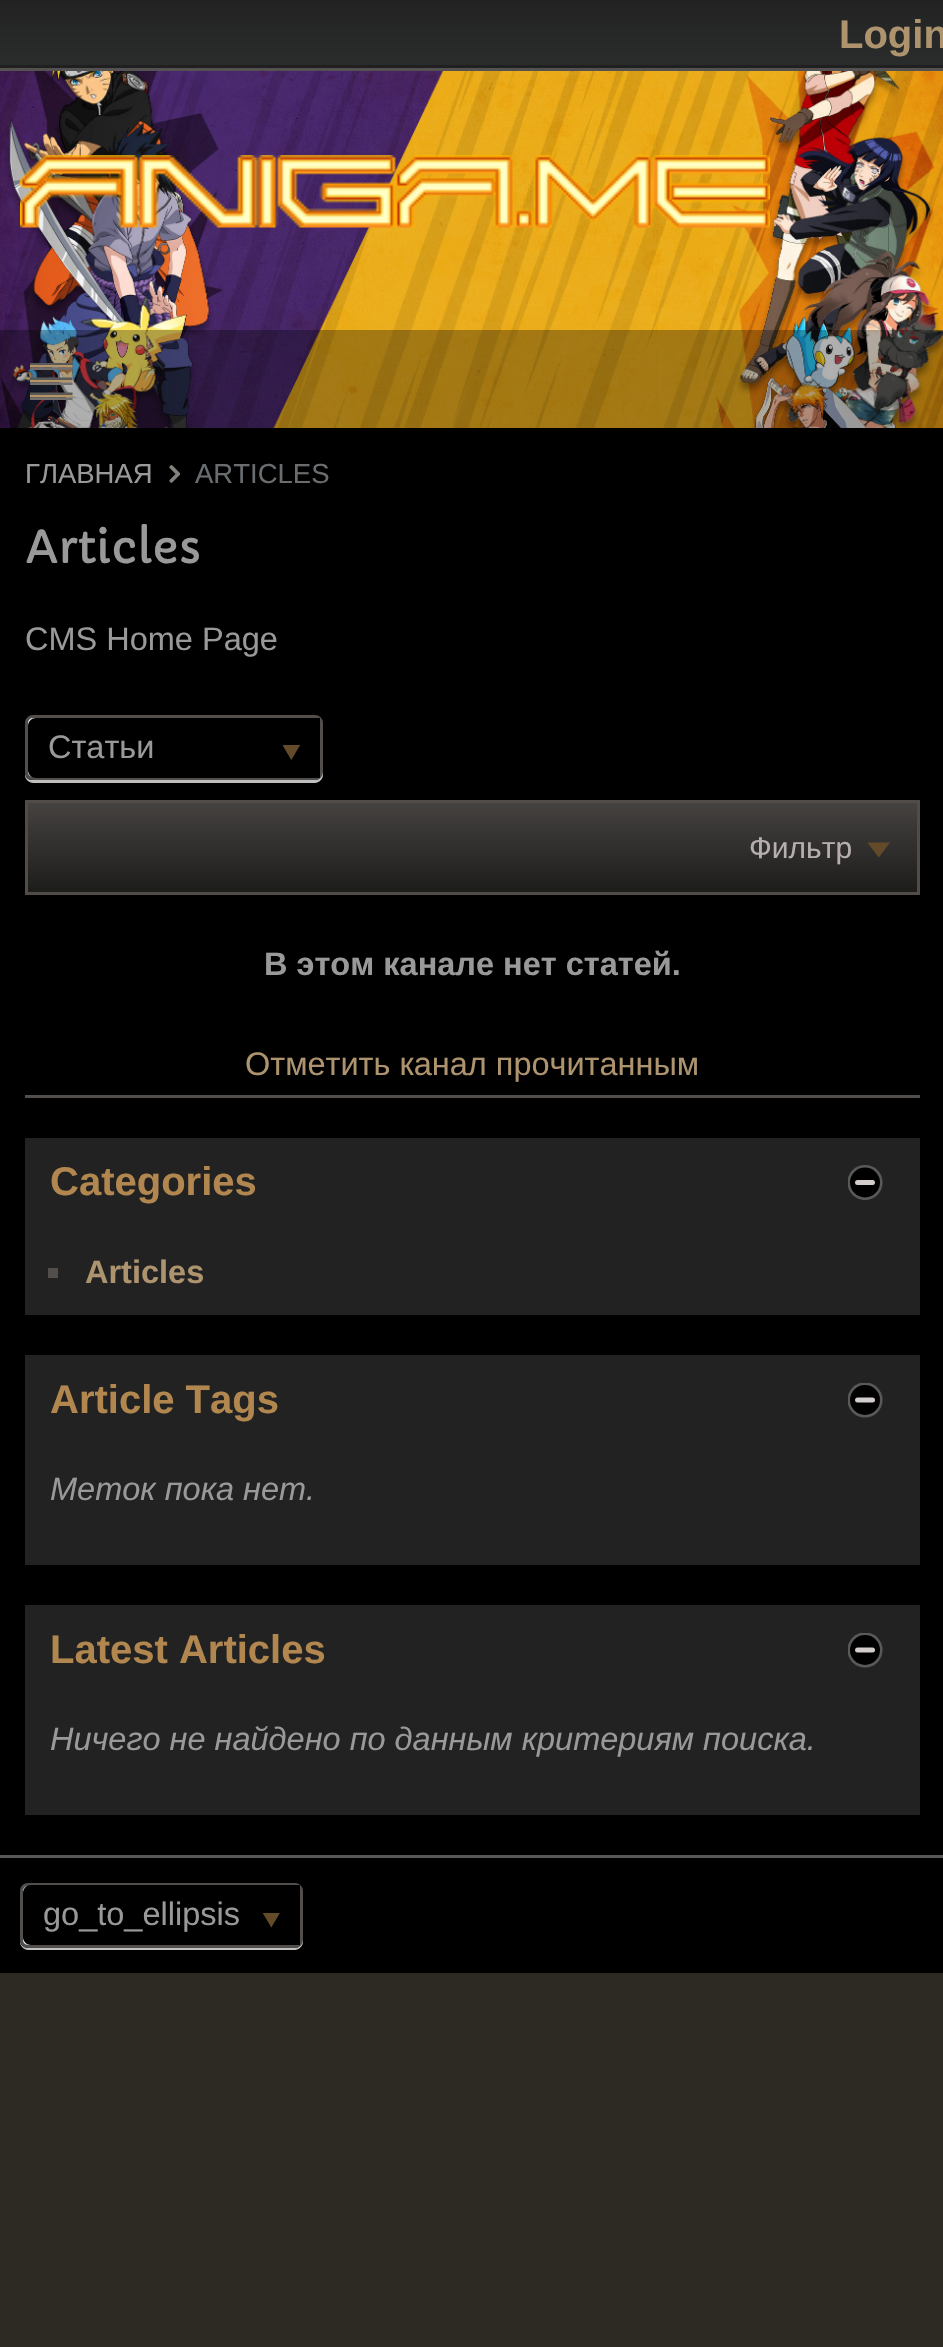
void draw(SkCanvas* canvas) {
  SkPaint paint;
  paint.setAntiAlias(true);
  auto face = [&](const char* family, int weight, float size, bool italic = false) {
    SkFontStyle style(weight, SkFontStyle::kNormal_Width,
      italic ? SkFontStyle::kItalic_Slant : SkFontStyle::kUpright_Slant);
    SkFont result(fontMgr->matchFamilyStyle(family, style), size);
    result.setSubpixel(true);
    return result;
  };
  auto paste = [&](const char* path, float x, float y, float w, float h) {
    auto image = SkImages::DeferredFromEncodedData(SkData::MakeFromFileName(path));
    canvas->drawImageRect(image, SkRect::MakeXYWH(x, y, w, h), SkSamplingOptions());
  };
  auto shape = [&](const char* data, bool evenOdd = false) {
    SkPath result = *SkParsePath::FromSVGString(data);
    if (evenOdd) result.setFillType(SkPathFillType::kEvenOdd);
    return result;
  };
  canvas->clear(0xff2c2a22);
  paste("img/1.png", 0, 71, 943, 357);
  {
    const SkColor colors[] = {0xff222222, 0xff2b2d2c};
    const float stops[] = {0, 1};
    const SkPoint ends[] = {{473, 0}, {473, 70}};
    paint.setShader(SkGradientShader::MakeLinear(ends, colors, stops, 2, SkTileMode::kClamp));
    paint.setAlpha(255);
  }
  canvas->drawRect(SkRect::MakeXYWH(0, 0, 943, 65), paint);
  paint.setShader(nullptr);
  paint.setColor(0xff202020);
  canvas->drawRect(SkRect::MakeXYWH(0, 65, 943, 3), paint);
  paint.setColor(0xff535251);
  canvas->drawRect(SkRect::MakeXYWH(0, 68, 943, 3), paint);
  paste("img/2.png", 20, 155, 750, 73);
  paint.setColor(0x4d000000);
  canvas->drawRect(SkRect::MakeXYWH(0, 330, 943, 98), paint);
  paste("img/3.png", 30, 363, 43, 37);
  paint.setColor(0xff000000);
  canvas->drawRect(SkRect::MakeXYWH(0, 428, 943, 1427), paint);
  paste("img/4.png", 169, 465, 11, 18);
  paint.setColor(0xffbfbfbf);
  canvas->drawPath(shape("M25 772V775C25 779 29 783 33 783H315C319 783 323 779 323 775V726L322 723V772C322 777 319 780 315 780H32C28 780 25 777 25 772Z"), paint);
  paint.setColor(0xffffffff);
  canvas->drawRoundRect(SkRect::MakeXYWH(26.5f, 716.5f, 295, 62), 6.5f, 6.5f, paint);
  paint.setStroke(true);
  paint.setStrokeWidth(3);
  paint.setColor(0xff524e4c);
  canvas->drawRoundRect(SkRect::MakeXYWH(26.5f, 716.5f, 295, 62), 6.5f, 6.5f, paint);
  paint.setStroke(false);
  paint.setColor(0xff000000);
  canvas->drawPath(shape("M36 718H320V778H36C31.5 778 28 774.5 28 770V726C28 721.5 31.5 718 36 718Z"), paint);
  paste("img/5.png", 283, 745, 17, 15);
  {
    const SkColor colors[] = {0xff454240, 0xff1c1c1b};
    const float stops[] = {0, 1};
    const SkPoint ends[] = {{473, 803}, {473, 893}};
    paint.setShader(SkGradientShader::MakeLinear(ends, colors, stops, 2, SkTileMode::kClamp));
    paint.setAlpha(255);
  }
  canvas->drawRect(SkRect::MakeXYWH(28, 803, 889, 89), paint);
  paint.setStroke(true);
  paint.setShader(nullptr);
  paint.setColor(0xff514c48);
  canvas->drawRect(SkRect::MakeXYWH(26.5f, 801.5f, 892, 92), paint);
  paste("img/6.png", 868, 842, 22, 16);
  paint.setStroke(false);
  paint.setColor(0xff524e4c);
  canvas->drawRect(SkRect::MakeXYWH(25, 1095, 895, 3), paint);
  paint.setColor(0xff222222);
  canvas->drawRect(SkRect::MakeXYWH(25, 1138, 895, 177), paint);
  paste("img/7.png", 848, 1165, 35, 35);
  paint.setColor(0xff524e4c);
  canvas->drawRect(SkRect::MakeXYWH(48, 1268, 10, 10), paint);
  paint.setColor(0xff222222);
  canvas->drawRect(SkRect::MakeXYWH(25, 1355, 895, 210), paint);
  paste("img/8.png", 848, 1383, 35, 35);
  canvas->drawRect(SkRect::MakeXYWH(25, 1605, 895, 210), paint);
  paste("img/8.png", 848, 1633, 35, 35);
  paint.setColor(0xff000000);
  canvas->drawRect(SkRect::MakeXYWH(0, 1858, 943, 115), paint);
  paint.setColor(0xff585858);
  canvas->drawRect(SkRect::MakeXYWH(0, 1855, 943, 3), paint);
  paint.setColor(0xffbfbfbf);
  canvas->drawPath(shape("M20 1940V1942C20 1946 24 1950 28 1950H295C299 1950 303 1946 303 1942V1893L302 1890V1940C302 1944 299 1948 295 1948H28C23 1948 20 1944 20 1940Z"), paint);
  paint.setColor(0xffffffff);
  canvas->drawRoundRect(SkRect::MakeXYWH(21.5f, 1884.5f, 280, 62), 6.5f, 6.5f, paint);
  paint.setStroke(true);
  paint.setColor(0xff524e4c);
  canvas->drawRoundRect(SkRect::MakeXYWH(21.5f, 1884.5f, 280, 62), 6.5f, 6.5f, paint);
  paint.setStroke(false);
  paint.setColor(0xff000000);
  canvas->drawPath(shape("M31 1885H300V1945H31C26.5 1945 23 1941.5 23 1937V1893C23 1888.5 26.5 1885 31 1885Z"), paint);
  paste("img/9.png", 263, 1913, 17, 15);
  auto f0 = face("Liberation Sans", 700, 40);
  paint.setColor(0xffad936e);
  canvas->drawString("Login", 839, 48, f0, paint);
  auto f1 = face("Liberation Sans", 400, 27.5f);
  paint.setColor(0xff9a9999);
  canvas->drawString("ГЛАВНАЯ", 25, 483, f1, paint);
  paint.setColor(0xff6a6d6f);
  canvas->drawString("ARTICLES", 195, 483, f1, paint);
  auto f2 = face("Capriola", 400, 45);
  paint.setColor(0xff9a9999);
  canvas->drawString("Articles", 25, 563, f2, paint);
  auto f3 = face("Liberation Sans", 400, 32.5f);
  canvas->drawString("CMS Home Page", 25, 650, f3, paint);
  canvas->drawString("Статьи", 48, 758, f3, paint);
  auto f4 = face("Liberation Sans", 400, 30);
  paint.setColor(0xffb6afad);
  canvas->drawString("Фильтр", 749, 858, f4, paint);
  auto f5 = face("Liberation Sans", 700, 32.5f);
  paint.setColor(0xff9a9999);
  canvas->drawString("В этом канале нет статей.", 264, 975, f5, paint);
  paint.setColor(0xffad936e);
  canvas->drawString("Отметить канал прочитанным", 245, 1075, f3, paint);
  paint.setColor(0xffb1864f);
  canvas->drawString("Categories", 50, 1195, f0, paint);
  paint.setColor(0xffad936e);
  canvas->drawString("Articles", 85, 1283, f5, paint);
  paint.setColor(0xffb1864f);
  canvas->drawString("Article Tags", 50, 1413, f0, paint);
  auto f6 = face("Liberation Sans", 400, 32.5f, true);
  paint.setColor(0xff9a9999);
  canvas->drawString("Меток пока нет.", 50, 1500, f6, paint);
  paint.setColor(0xffb1864f);
  canvas->drawString("Latest Articles", 50, 1663, f0, paint);
  paint.setColor(0xff9a9999);
  canvas->drawString("Ничего не найдено по данным критериям поиска.", 50, 1750, f6, paint);
  canvas->drawString("go_to_ellipsis", 43, 1925, f3, paint);
}
